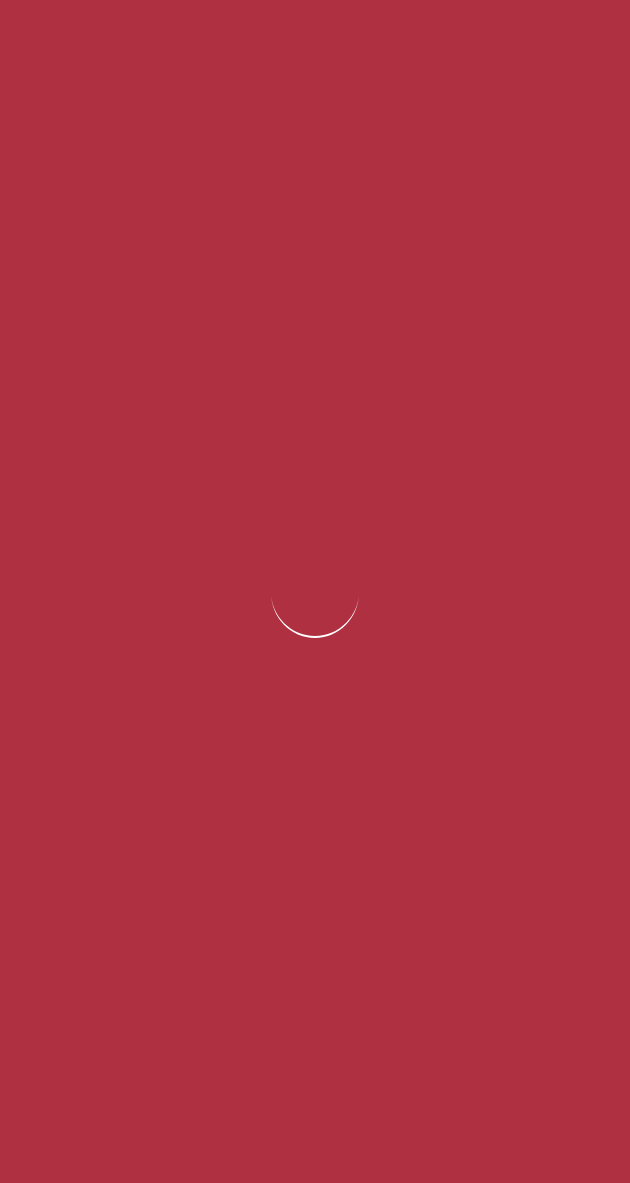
void draw(SkCanvas* canvas) {
  SkPaint paint;
  paint.setAntiAlias(true);
  auto shape = [&](const char* data, bool evenOdd = false) {
    SkPath result = *SkParsePath::FromSVGString(data);
    if (evenOdd) result.setFillType(SkPathFillType::kEvenOdd);
    return result;
  };
  canvas->clear(0xffaf3141);
  paint.setColor(0xffffffff);
  canvas->drawPath(shape("M271 592C271 616 291 636 315 636C339 636 359 616 359 592C359 618 339 638 315 638C291 638 271 618 271 592"), paint);
}
